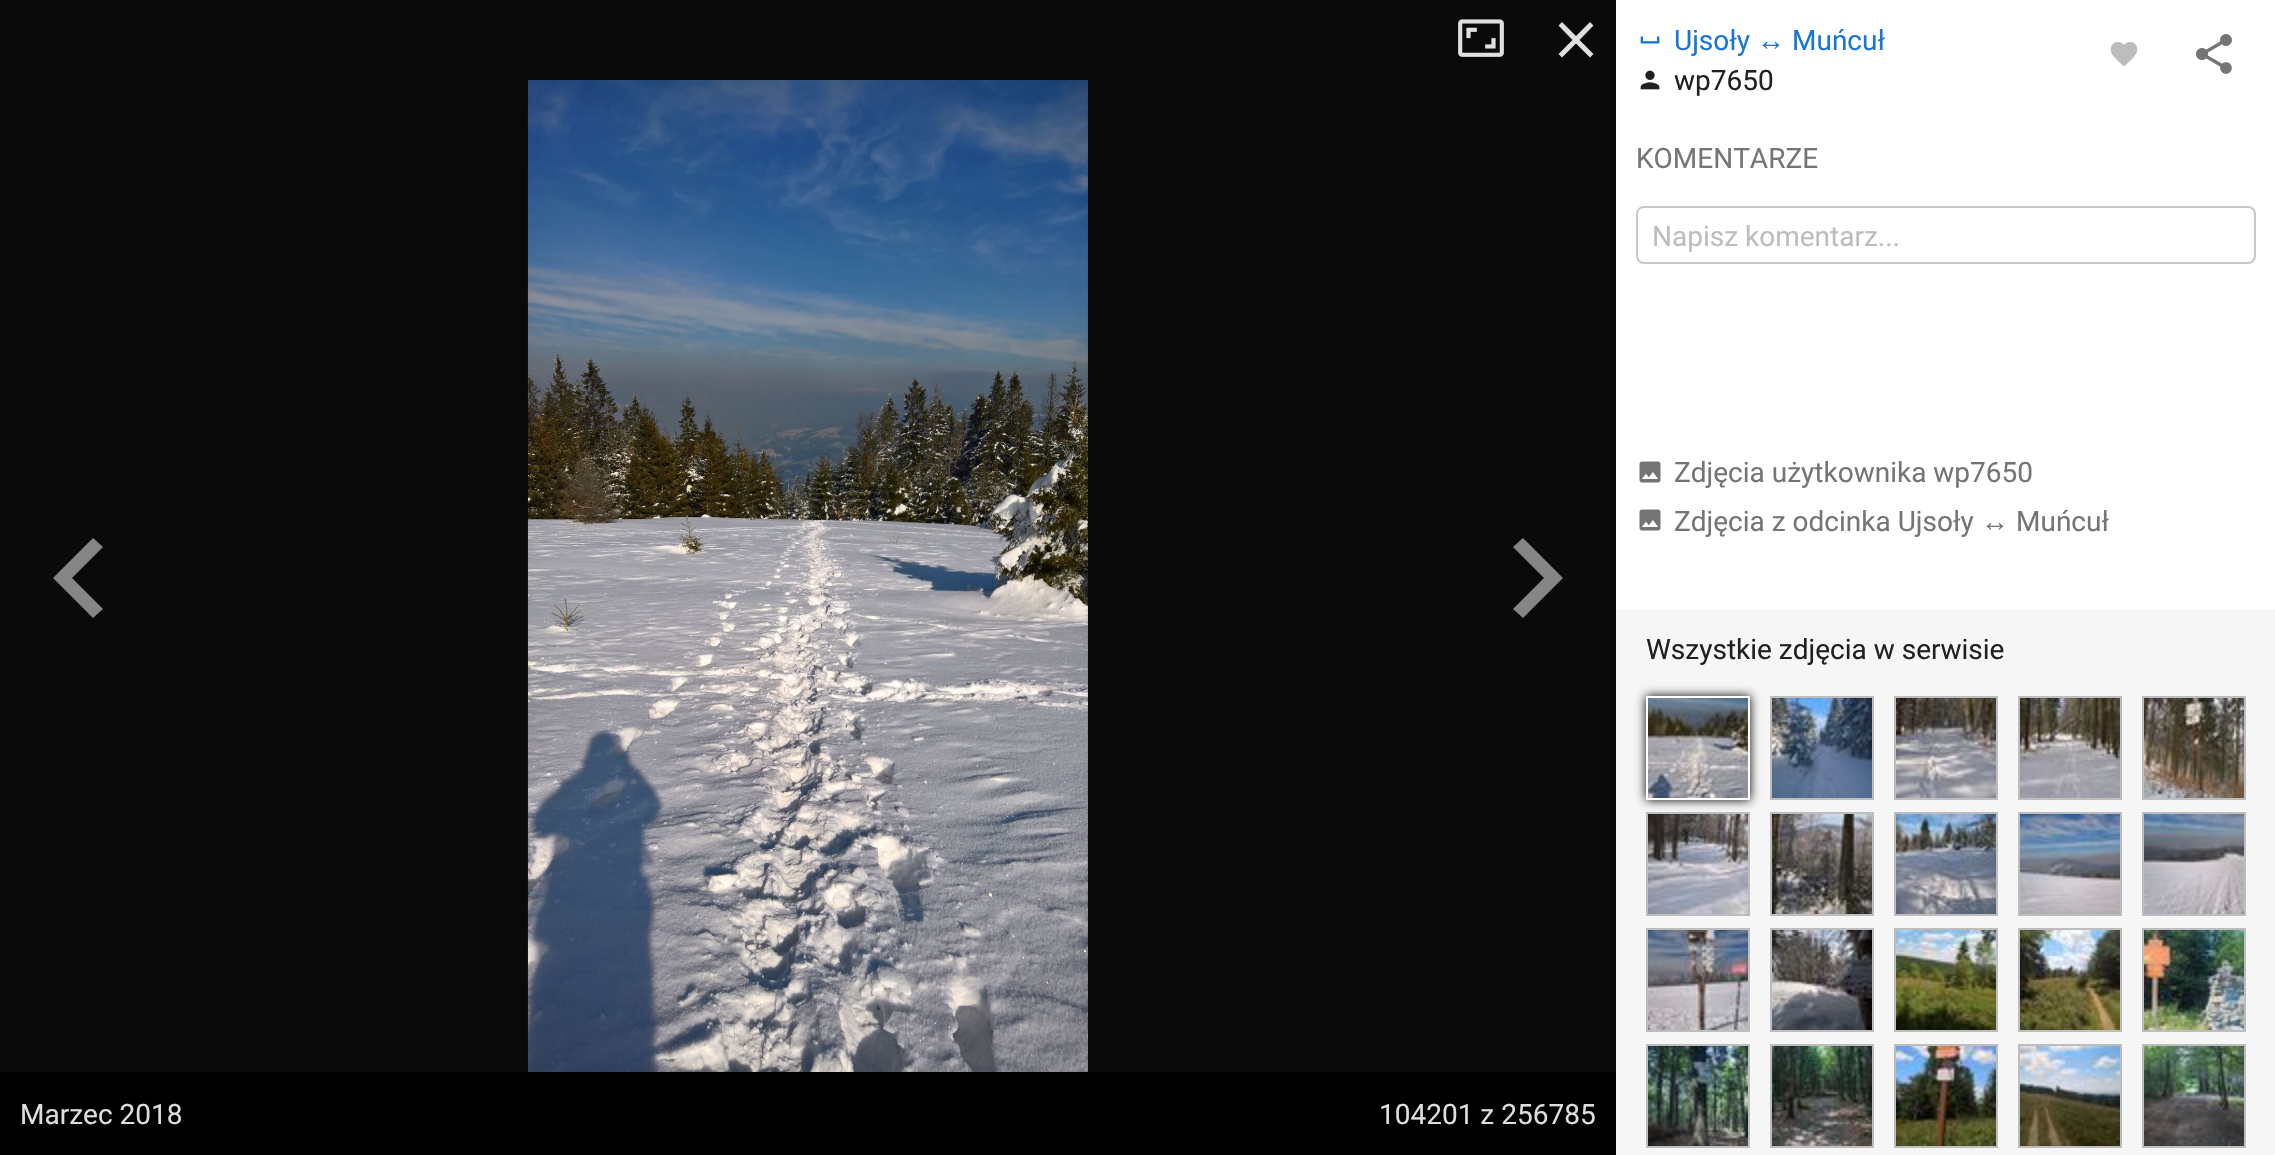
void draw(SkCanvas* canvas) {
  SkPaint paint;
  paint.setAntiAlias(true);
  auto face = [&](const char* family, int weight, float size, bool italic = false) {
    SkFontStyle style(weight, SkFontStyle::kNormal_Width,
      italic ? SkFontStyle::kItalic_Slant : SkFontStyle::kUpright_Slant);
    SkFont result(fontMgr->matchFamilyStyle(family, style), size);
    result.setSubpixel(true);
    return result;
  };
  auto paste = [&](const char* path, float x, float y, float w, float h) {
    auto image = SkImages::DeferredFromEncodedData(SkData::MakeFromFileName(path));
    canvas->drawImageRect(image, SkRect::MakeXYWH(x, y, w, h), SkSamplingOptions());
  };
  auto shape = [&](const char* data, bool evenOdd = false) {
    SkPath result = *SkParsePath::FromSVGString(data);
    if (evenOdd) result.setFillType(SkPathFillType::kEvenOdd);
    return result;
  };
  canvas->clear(0xff0a0a0a);
  paint.setColor(0xffffffff);
  canvas->drawRect(SkRect::MakeXYWH(1616, 0, 659, 610), paint);
  paste("img/1.png", 1640, 36, 20, 8);
  paste("img/2.png", 1640, 70, 20, 20);
  paste("img/3.png", 2110, 42, 28, 25);
  paste("img/4.png", 2196, 34, 36, 40);
  paint.setStroke(true);
  paint.setStrokeWidth(2);
  paint.setColor(0xffc8c8c8);
  canvas->drawRoundRect(SkRect::MakeXYWH(1637, 207, 618, 56), 7, 7, paint);
  paste("img/5.png", 1639, 461, 22, 22);
  paste("img/5.png", 1639, 509, 22, 22);
  paint.setStroke(false);
  paint.setColor(0xfff6f6f6);
  canvas->drawRect(SkRect::MakeXYWH(1616, 610, 659, 545), paint);
  paint.setColor(0xff000000);
  paint.setMaskFilter(SkMaskFilter::MakeBlur(kNormal_SkBlurStyle, 5));
  canvas->drawRect(SkRect::MakeXYWH(1646, 696, 104, 104), paint);
  paint.setMaskFilter(nullptr);
  paint.setStroke(true);
  paint.setColor(0xffffffff);
  canvas->drawRect(SkRect::MakeXYWH(1647, 697, 102, 102), paint);
  paste("img/6.png", 1648, 698, 100, 100);
  paint.setColor(0xffbdbdbd);
  canvas->drawRect(SkRect::MakeXYWH(1771, 697, 102, 102), paint);
  paste("img/7.png", 1772, 698, 100, 100);
  canvas->drawRect(SkRect::MakeXYWH(1895, 697, 102, 102), paint);
  paste("img/8.png", 1896, 698, 100, 100);
  canvas->drawRect(SkRect::MakeXYWH(2019, 697, 102, 102), paint);
  paste("img/9.png", 2020, 698, 100, 100);
  canvas->drawRect(SkRect::MakeXYWH(2143, 697, 102, 102), paint);
  paste("img/10.png", 2144, 698, 100, 100);
  canvas->drawRect(SkRect::MakeXYWH(1647, 813, 102, 102), paint);
  paste("img/11.png", 1648, 814, 100, 100);
  canvas->drawRect(SkRect::MakeXYWH(1771, 813, 102, 102), paint);
  paste("img/12.png", 1772, 814, 100, 100);
  canvas->drawRect(SkRect::MakeXYWH(1895, 813, 102, 102), paint);
  paste("img/13.png", 1896, 814, 100, 100);
  canvas->drawRect(SkRect::MakeXYWH(2019, 813, 102, 102), paint);
  paste("img/14.png", 2020, 814, 100, 100);
  canvas->drawRect(SkRect::MakeXYWH(2143, 813, 102, 102), paint);
  paste("img/15.png", 2144, 814, 100, 100);
  canvas->drawRect(SkRect::MakeXYWH(1647, 929, 102, 102), paint);
  paste("img/16.png", 1648, 930, 100, 100);
  canvas->drawRect(SkRect::MakeXYWH(1771, 929, 102, 102), paint);
  paste("img/17.png", 1772, 930, 100, 100);
  canvas->drawRect(SkRect::MakeXYWH(1895, 929, 102, 102), paint);
  paste("img/18.png", 1896, 930, 100, 100);
  canvas->drawRect(SkRect::MakeXYWH(2019, 929, 102, 102), paint);
  paste("img/19.png", 2020, 930, 100, 100);
  canvas->drawRect(SkRect::MakeXYWH(2143, 929, 102, 102), paint);
  paste("img/20.png", 2144, 930, 100, 100);
  canvas->drawRect(SkRect::MakeXYWH(1647, 1045, 102, 102), paint);
  paste("img/21.png", 1648, 1046, 100, 100);
  canvas->drawRect(SkRect::MakeXYWH(1771, 1045, 102, 102), paint);
  paste("img/22.png", 1772, 1046, 100, 100);
  canvas->drawRect(SkRect::MakeXYWH(1895, 1045, 102, 102), paint);
  paste("img/23.png", 1896, 1046, 100, 100);
  canvas->drawRect(SkRect::MakeXYWH(2019, 1045, 102, 102), paint);
  paste("img/24.png", 2020, 1046, 100, 100);
  canvas->drawRect(SkRect::MakeXYWH(2143, 1045, 102, 102), paint);
  paste("img/25.png", 2144, 1046, 100, 100);
  paste("img/26.png", 1458, 19, 46, 38);
  paint.setStroke(false);
  paint.setColor(0xffdfdfdf);
  canvas->drawPath(shape("M1593.5 25.5L1590 22L1576 36L1562 22L1558.5 25.5L1572.5 40L1558.5 54L1562 57.5L1576 43.5L1590 57.5L1593.5 54L1579.5 40Z"), paint);
  paint.setColor(0xff858585);
  canvas->drawPath(shape("M103 547L93 538L53 578L93 618L103 609L72 578Z"), paint);
  paste("img/27.png", 527, 80, 561, 992);
  canvas->drawPath(shape("M1523 538L1513 547L1544 578L1513 609L1523 618L1563 578Z"), paint);
  paint.setColor(0xff000000);
  canvas->drawRect(SkRect::MakeXYWH(0, 1072, 1616, 83), paint);
  auto f0 = face("Roboto", 400, 28);
  paint.setColor(0xff1976d2);
  canvas->drawString("Ujsoły", 1674, 50, f0, paint);
  canvas->drawString("Muńcuł", 1792, 50, f0, paint);
  auto f1 = face("Liberation Sans", 400, 28);
  canvas->drawString("↔", 1757, 50, f1, paint);
  paint.setColor(0xff212121);
  canvas->drawString("wp7650", 1674, 90, f0, paint);
  paint.setColor(0xff757575);
  canvas->drawString("KOMENTARZE", 1636, 168, f0, paint);
  paint.setColor(0xffbdbdbd);
  canvas->drawString("Napisz komentarz...", 1652, 246, f0, paint);
  paint.setColor(0xff757575);
  canvas->drawString("Zdjęcia użytkownika wp7650", 1674, 482, f0, paint);
  canvas->drawString("Zdjęcia z odcinka Ujsoły", 1674, 531, f0, paint);
  canvas->drawString("↔", 1981, 531, f1, paint);
  canvas->drawString("Muńcuł", 2016, 531, f0, paint);
  paint.setColor(0xff212121);
  canvas->drawString("Wszystkie zdjęcia w serwisie", 1646, 659, f0, paint);
  paint.setColor(0xffdedede);
  canvas->drawString("Marzec 2018", 20, 1124, f0, paint);
  canvas->drawString("104201 z 256785", 1379, 1124, f0, paint);
}
